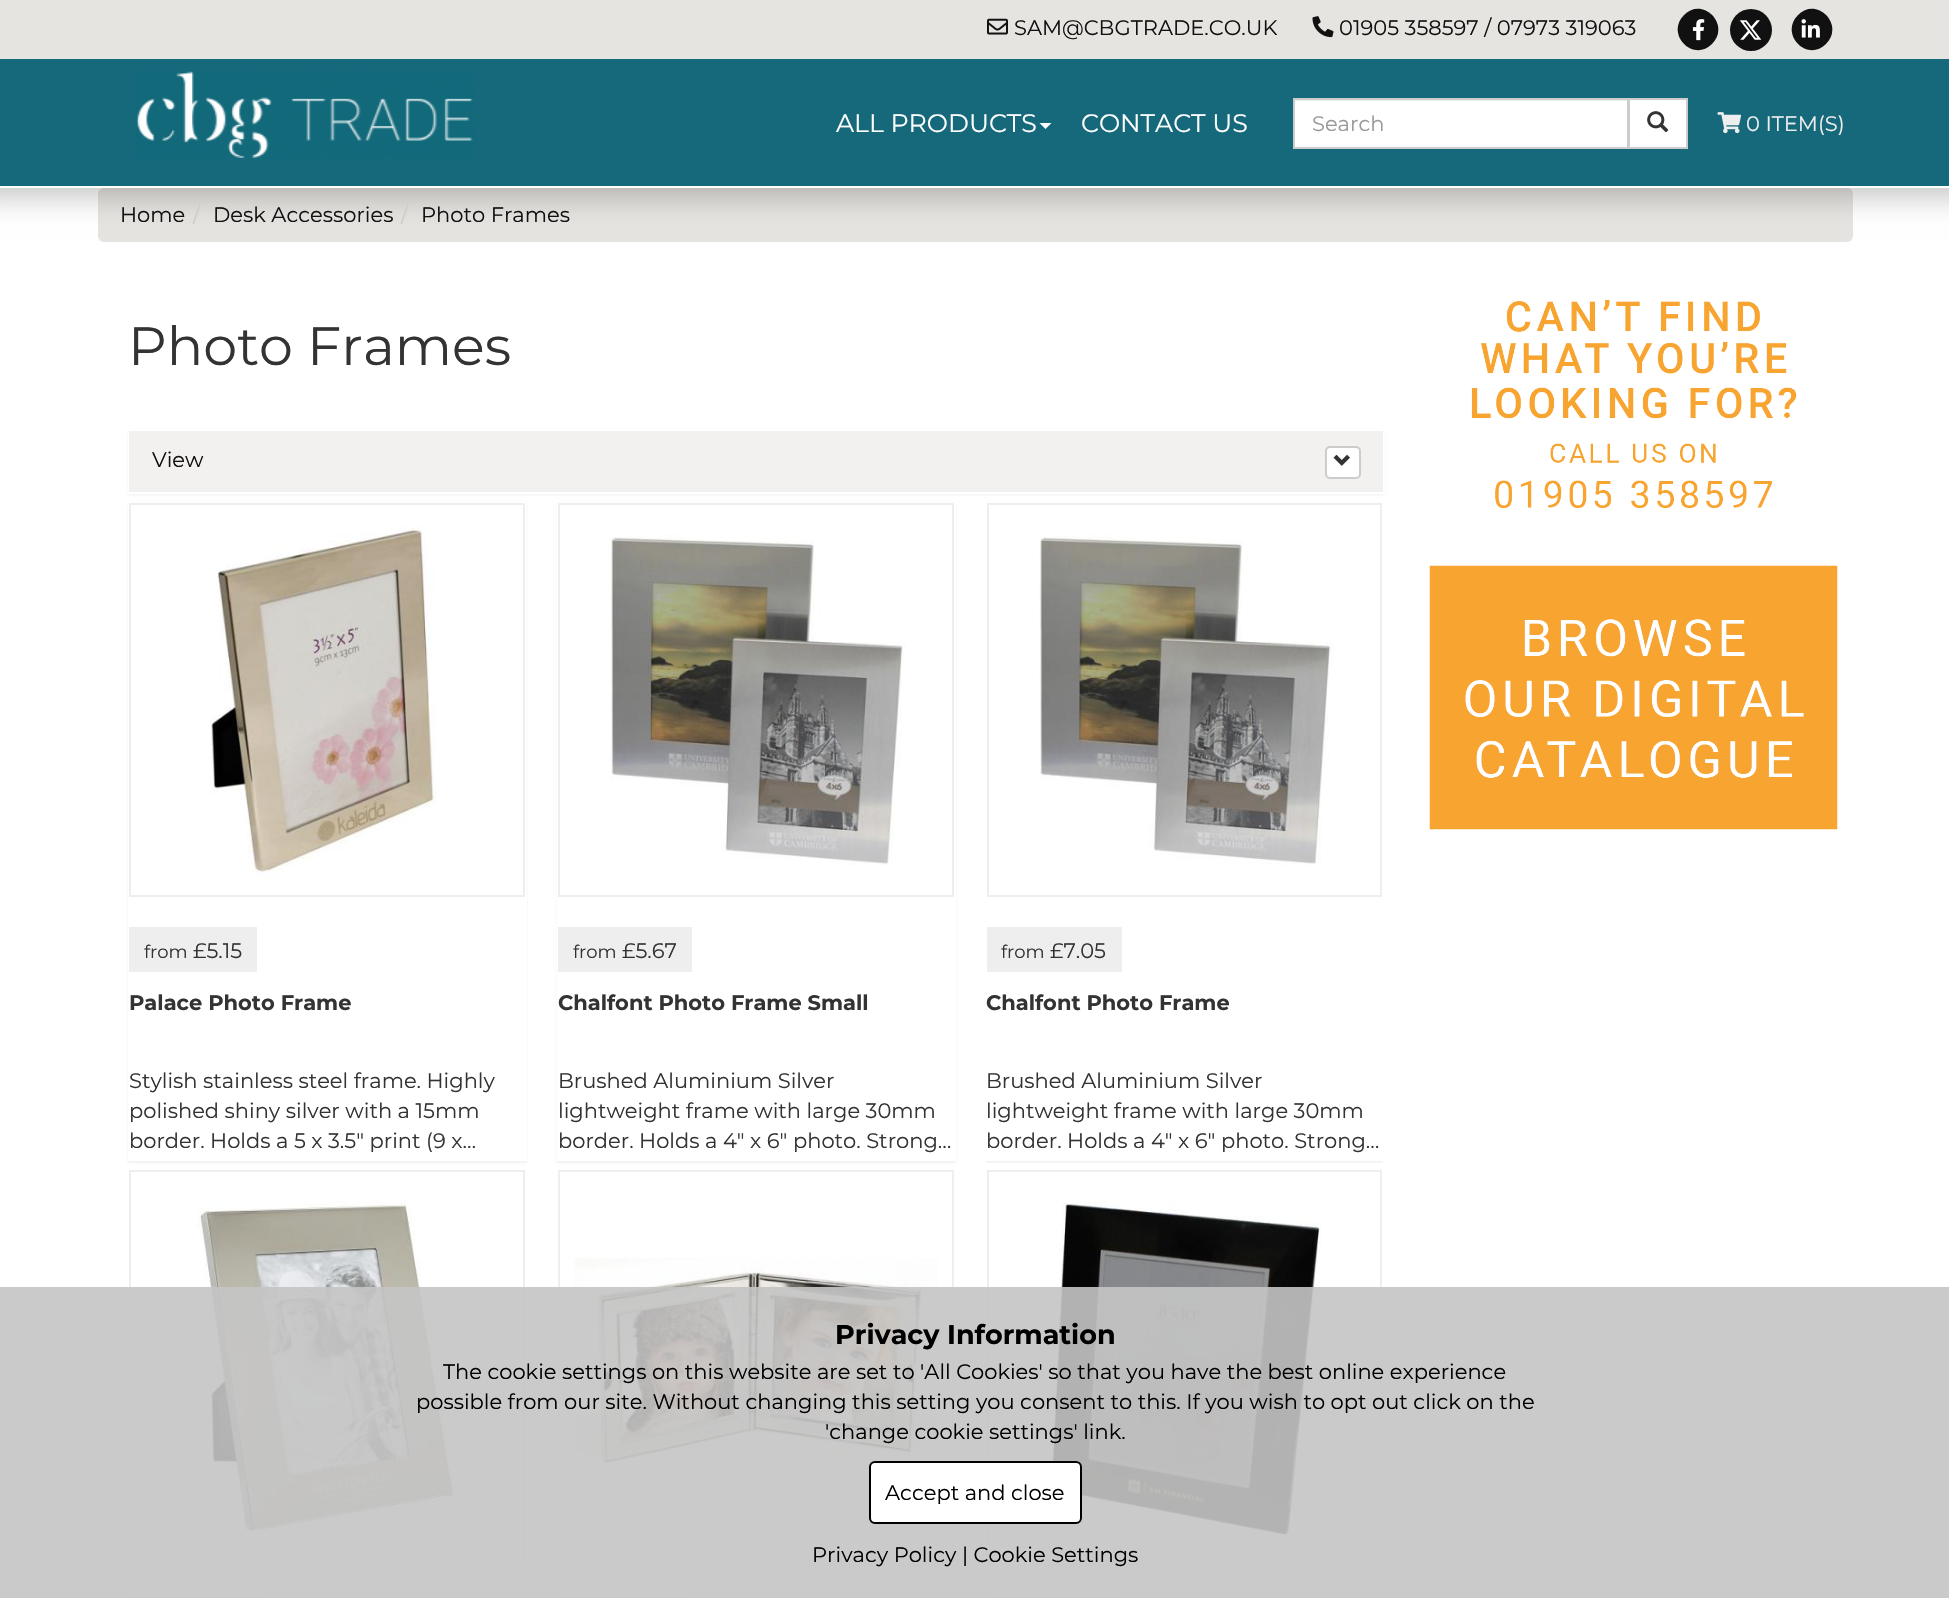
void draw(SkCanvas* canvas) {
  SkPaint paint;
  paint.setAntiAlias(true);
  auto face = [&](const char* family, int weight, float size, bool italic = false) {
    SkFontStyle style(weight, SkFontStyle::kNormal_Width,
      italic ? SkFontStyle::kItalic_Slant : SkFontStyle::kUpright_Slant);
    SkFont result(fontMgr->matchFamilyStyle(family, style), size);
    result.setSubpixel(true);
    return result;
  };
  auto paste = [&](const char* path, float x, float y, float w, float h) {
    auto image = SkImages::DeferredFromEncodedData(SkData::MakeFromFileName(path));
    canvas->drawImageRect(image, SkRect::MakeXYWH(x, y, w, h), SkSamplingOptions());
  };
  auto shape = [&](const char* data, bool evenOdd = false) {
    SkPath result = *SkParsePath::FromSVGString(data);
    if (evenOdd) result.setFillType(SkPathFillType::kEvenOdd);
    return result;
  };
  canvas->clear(0xffffffff);
  paint.setColor(0xffe6e4e0);
  canvas->drawRoundRect(SkRect::MakeXYWH(98, 188, 1755, 54), 6, 6, paint);
  paint.setColor(0x40000000);
  paint.setMaskFilter(SkMaskFilter::MakeBlur(kNormal_SkBlurStyle, 15));
  canvas->drawRect(SkRect::MakeXYWH(-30, -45, 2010, 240), paint);
  paint.setMaskFilter(nullptr);
  paint.setColor(0xffe6e4e0);
  canvas->drawRect(SkRect::MakeXYWH(0, 0, 1949, 59), paint);
  paint.setColor(0xff16697a);
  canvas->drawRect(SkRect::MakeXYWH(0, 59, 1949, 127), paint);
  paste("img/1.png", 987, 18, 21, 17);
  paste("img/2.png", 1312, 16, 22, 22);
  paint.setColor(0xff111111);
  canvas->drawPath(shape("M1684 15C1703-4 1731 25 1712 44C1693 63 1665 34 1684 15Z"), paint);
  paste("img/3.png", 1692, 19, 13, 22);
  canvas->drawCircle(1751, 30, 21, paint);
  paste("img/4.png", 1739, 20, 23, 20);
  canvas->drawPath(shape("M1798 15C1817-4 1845 25 1826 44C1807 63 1779 34 1798 15Z"), paint);
  paste("img/5.png", 1801, 19, 19, 19);
  paint.setColor(0xffffffff);
  canvas->drawRect(SkRect::MakeXYWH(0, 186, 1949, 2), paint);
  paste("img/6.png", 135, 71, 339, 88);
  canvas->drawPath(shape("M1039.5 123H1051.5L1045.5 129Z"), paint);
  canvas->drawRect(SkRect::MakeXYWH(1295, 101, 332, 46), paint);
  paint.setColor(0xffececec);
  canvas->drawRect(SkRect::MakeXYWH(1295, 100, 333, 1), paint);
  paint.setStroke(true);
  paint.setStrokeWidth(2);
  paint.setColor(0xffcccccc);
  canvas->drawRect(SkRect::MakeXYWH(1294, 99, 334, 49), paint);
  paint.setStroke(false);
  paint.setColor(0xffffffff);
  canvas->drawRect(SkRect::MakeXYWH(1629, 99, 58, 49), paint);
  paint.setStroke(true);
  paint.setColor(0xffcccccc);
  canvas->drawRect(SkRect::MakeXYWH(1629, 99, 58, 49), paint);
  paste("img/7.png", 1647, 111, 22, 22);
  paste("img/8.png", 1717, 112, 25, 22);
  paint.setStroke(false);
  paint.setColor(0x0d000000);
  paint.setMaskFilter(SkMaskFilter::MakeBlur(kNormal_SkBlurStyle, 1));
  canvas->drawRect(SkRect::MakeXYWH(128, 431, 1257, 64), paint);
  paint.setMaskFilter(nullptr);
  paint.setColor(0xffffffff);
  canvas->drawRect(SkRect::MakeXYWH(128, 430, 1257, 64), paint);
  paint.setColor(0xfff2f1ef);
  canvas->drawRect(SkRect::MakeXYWH(129, 431, 1254, 61), paint);
  paint.setColor(0xffffffff);
  canvas->drawRoundRect(SkRect::MakeXYWH(1326, 447, 34, 31), 4, 4, paint);
  paint.setStroke(true);
  paint.setColor(0xffcccccc);
  canvas->drawRoundRect(SkRect::MakeXYWH(1326, 447, 34, 31), 4, 4, paint);
  paste("img/9.png", 1333, 454, 17, 12);
  paint.setStroke(false);
  paint.setColor(0x0d000000);
  paint.setMaskFilter(SkMaskFilter::MakeBlur(kNormal_SkBlurStyle, 1));
  canvas->drawRect(SkRect::MakeXYWH(128, 503, 399, 660), paint);
  paint.setMaskFilter(nullptr);
  paint.setColor(0xffffffff);
  canvas->drawRect(SkRect::MakeXYWH(128, 502, 399, 659), paint);
  paint.setStroke(true);
  paint.setColor(0xffeeeeee);
  canvas->drawRect(SkRect::MakeXYWH(130, 504, 394, 392), paint);
  paste("img/10.png", 211, 526, 225, 355);
  paint.setStroke(false);
  canvas->drawRect(SkRect::MakeXYWH(129, 927, 128, 45), paint);
  paint.setColor(0x0d000000);
  paint.setMaskFilter(SkMaskFilter::MakeBlur(kNormal_SkBlurStyle, 1));
  canvas->drawRect(SkRect::MakeXYWH(557, 503, 399, 660), paint);
  paint.setMaskFilter(nullptr);
  paint.setColor(0xffffffff);
  canvas->drawRect(SkRect::MakeXYWH(557, 502, 399, 659), paint);
  paint.setStroke(true);
  paint.setColor(0xffeeeeee);
  canvas->drawRect(SkRect::MakeXYWH(559, 504, 394, 392), paint);
  paste("img/11.png", 610, 535, 295, 330);
  paint.setStroke(false);
  canvas->drawRect(SkRect::MakeXYWH(558, 927, 134, 45), paint);
  canvas->save();
  canvas->clipRect(SkRect::MakeXYWH(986, 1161, 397, 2));
  paint.setColor(0x0d000000);
  paint.setMaskFilter(SkMaskFilter::MakeBlur(kNormal_SkBlurStyle, 1));
  canvas->drawRect(SkRect::MakeXYWH(986, 503, 397, 660), paint);
  paint.setMaskFilter(nullptr);
  canvas->restore();
  paint.setStroke(true);
  paint.setColor(0xffeeeeee);
  canvas->drawRect(SkRect::MakeXYWH(988, 504, 393, 392), paint);
  paste("img/12.png", 1039, 535, 296, 330);
  paint.setStroke(false);
  canvas->drawRect(SkRect::MakeXYWH(987, 927, 135, 45), paint);
  paint.setStroke(true);
  canvas->drawRect(SkRect::MakeXYWH(130, 1171, 394, 394), paint);
  paste("img/13.png", 197, 1201, 260, 334);
  paint.setStroke(false);
  canvas->drawRect(SkRect::MakeXYWH(129, 1596, 135, 2), paint);
  paint.setStroke(true);
  canvas->drawRect(SkRect::MakeXYWH(559, 1171, 394, 394), paint);
  paste("img/14.png", 574, 1258, 364, 220);
  paint.setStroke(false);
  canvas->drawRect(SkRect::MakeXYWH(558, 1596, 135, 2), paint);
  paint.setStroke(true);
  canvas->drawRect(SkRect::MakeXYWH(988, 1171, 393, 394), paint);
  paste("img/15.png", 1047, 1201, 274, 334);
  paint.setStroke(false);
  canvas->drawRect(SkRect::MakeXYWH(987, 1596, 132, 2), paint);
  paste("img/16.png", 1471, 300, 326, 208);
  paste("img/17.png", 1429, 565, 409, 265);
  paint.setColor(0xe6c4c4c4);
  canvas->drawRect(SkRect::MakeXYWH(0, 1287, 1949, 311), paint);
  paint.setColor(0xffffffff);
  canvas->drawRoundRect(SkRect::MakeXYWH(870, 1462, 211, 61), 5, 5, paint);
  paint.setStroke(true);
  paint.setColor(0xff000000);
  canvas->drawRoundRect(SkRect::MakeXYWH(870, 1462, 211, 61), 5, 5, paint);
  auto f0 = face("Montserrat", 400, 21);
  paint.setStroke(false);
  paint.setColor(0xff111111);
  canvas->drawString("SAM@CBGTRADE.CO.UK", 1014, 35, f0, paint);
  canvas->drawString("01905 358597 / 07973 319063", 1339, 35, f0, paint);
  auto f1 = face("Montserrat", 400, 25.25f);
  paint.setColor(0xffffffff);
  canvas->drawString("ALL PRODUCTS", 836, 132, f1, paint);
  canvas->drawString("CONTACT US", 1081, 132, f1, paint);
  paint.setColor(0xff999999);
  canvas->drawString("Search", 1312, 131, f0, paint);
  paint.setColor(0xffeeeeee);
  canvas->drawString("0 ITEM(S)", 1746, 131, f0, paint);
  paint.setColor(0xff111111);
  canvas->drawString("Home", 120, 222, f0, paint);
  paint.setColor(0xffcccccc);
  canvas->drawString("/", 193, 222, f0, paint);
  paint.setColor(0xff111111);
  canvas->drawString("Desk Accessories", 213, 222, f0, paint);
  paint.setColor(0xffcccccc);
  canvas->drawString("/", 401, 222, f0, paint);
  paint.setColor(0xff111111);
  canvas->drawString("Photo Frames", 421, 222, f0, paint);
  auto f2 = face("Montserrat", 400, 54);
  paint.setColor(0xff333333);
  canvas->drawString("Photo Frames", 128, 365, f2, paint);
  paint.setColor(0xff111111);
  canvas->drawString("View", 152, 467, f0, paint);
  auto f3 = face("Montserrat", 400, 18);
  paint.setColor(0xff333333);
  canvas->drawString("from", 144, 958, f3, paint);
  canvas->drawString("£5.15", 193, 958, f0, paint);
  auto f4 = face("Montserrat", 700, 21);
  canvas->drawString("Palace Photo Frame", 129, 1010, f4, paint);
  {
    const struct { const char* s; float x, y; } items[] = {
      {"Stylish stainless steel frame. Highly", 129, 1088},
      {"polished shiny silver with a 15mm", 129, 1118},
      {"border. Holds a 5 x 3.5\" print (9 x…", 129, 1148},
    };
    for (auto [s, x, y] : items) {
      canvas->drawString(s, x, y, f0, paint);
    }
  }
  canvas->drawString("from", 573, 958, f3, paint);
  canvas->drawString("£5.67", 622, 958, f0, paint);
  canvas->drawString("Chalfont Photo Frame Small", 558, 1010, f4, paint);
  {
    const struct { const char* s; float x, y; } items[] = {
      {"Brushed Aluminium Silver", 558, 1088},
      {"lightweight frame with large 30mm", 558, 1118},
      {"border. Holds a 4\" x 6\" photo. Strong…", 558, 1148},
    };
    for (auto [s, x, y] : items) {
      canvas->drawString(s, x, y, f0, paint);
    }
  }
  canvas->drawString("from", 1001, 958, f3, paint);
  canvas->drawString("£7.05", 1050, 958, f0, paint);
  canvas->drawString("Chalfont Photo Frame", 986, 1010, f4, paint);
  {
    const struct { const char* s; float x, y; } items[] = {
      {"Brushed Aluminium Silver", 986, 1088},
      {"lightweight frame with large 30mm", 986, 1118},
      {"border. Holds a 4\" x 6\" photo. Strong…", 986, 1148},
    };
    for (auto [s, x, y] : items) {
      canvas->drawString(s, x, y, f0, paint);
    }
  }
  auto f5 = face("Montserrat", 700, 27);
  paint.setColor(0xff000000);
  canvas->drawString("Privacy Information", 835, 1344, f5, paint);
  {
    const struct { const char* s; float x, y; } items[] = {
      {"The cookie settings on this website are set to 'All Cookies' so that you have the best online experience", 443, 1379},
      {"possible from our site. Without changing this setting you consent to this. If you wish to opt out click on the", 416, 1409},
      {"'change cookie settings' link.", 825, 1439},
      {"Accept and close", 885, 1500},
      {"Privacy Policy | Cookie Settings", 812, 1562},
    };
    for (auto [s, x, y] : items) {
      canvas->drawString(s, x, y, f0, paint);
    }
  }
}
